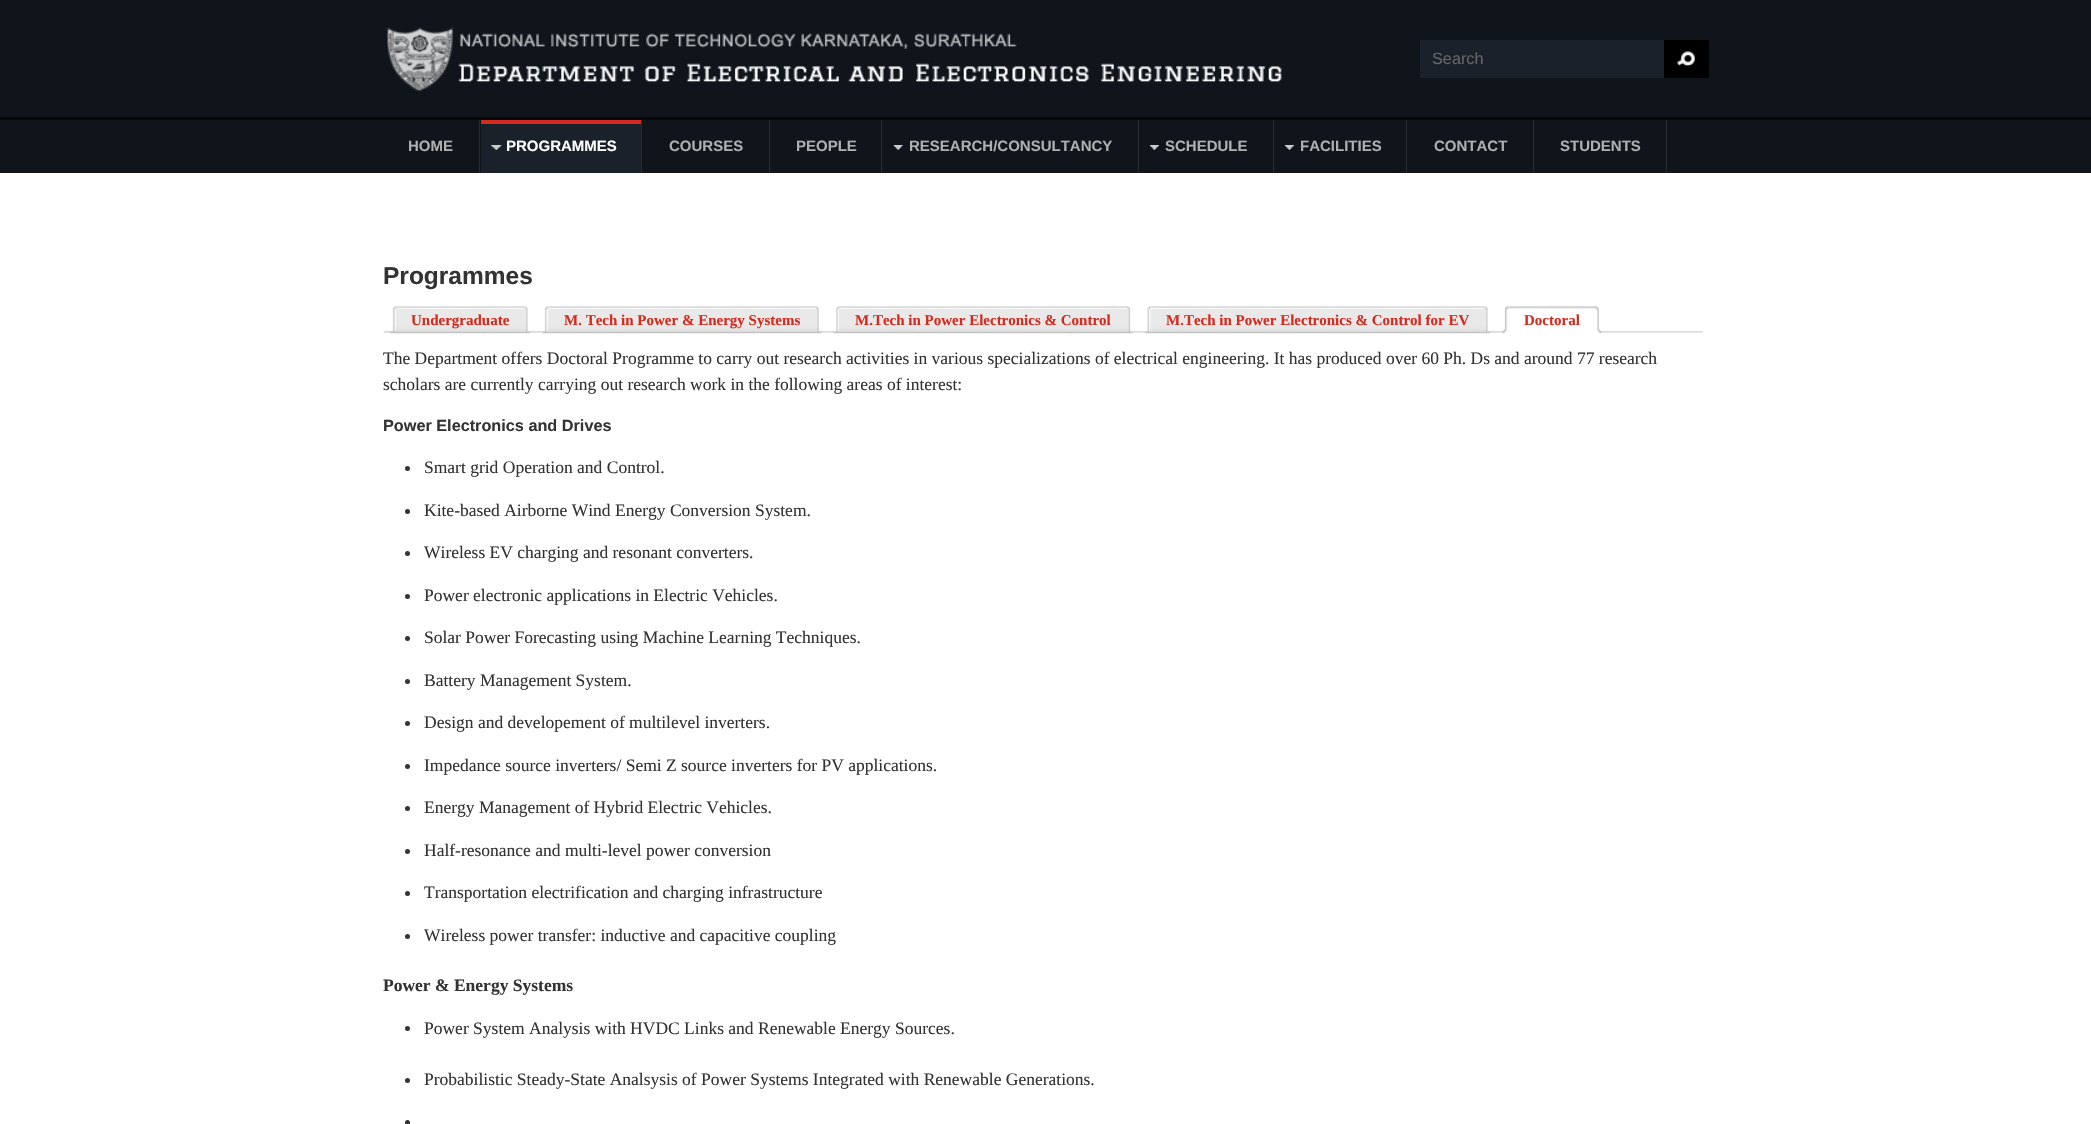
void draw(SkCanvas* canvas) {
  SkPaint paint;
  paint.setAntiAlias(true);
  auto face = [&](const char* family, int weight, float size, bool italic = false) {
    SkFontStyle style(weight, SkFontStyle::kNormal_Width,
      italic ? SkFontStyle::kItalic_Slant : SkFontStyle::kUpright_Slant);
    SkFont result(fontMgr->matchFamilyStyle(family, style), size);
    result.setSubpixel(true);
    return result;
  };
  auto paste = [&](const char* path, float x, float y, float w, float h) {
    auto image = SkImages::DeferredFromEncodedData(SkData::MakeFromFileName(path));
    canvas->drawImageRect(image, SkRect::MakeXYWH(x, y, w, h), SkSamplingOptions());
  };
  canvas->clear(0xffffffff);
  paint.setColor(0xff10151c);
  canvas->drawRect(SkRect::MakeXYWH(0, 0, 2091, 117), paint);
  paint.setColor(0xff06080a);
  canvas->drawRect(SkRect::MakeXYWH(0, 117, 2091, 3), paint);
  paste("img/1.png", 387, 27, 895, 65);
  paint.setColor(0xff1b212a);
  canvas->drawRect(SkRect::MakeXYWH(1420, 40, 244, 38), paint);
  paint.setColor(0xff000000);
  canvas->drawRect(SkRect::MakeXYWH(1664, 40, 45, 38), paint);
  paste("img/2.png", 1677, 51, 18, 16);
  {
    const struct { float x, y, w, h; SkColor color; } items[] = {
      {0, 120, 2091, 53, 0xff10151c},
      {479, 120, 1, 53, 0xff2b2c2e},
      {641, 120, 1, 53, 0xff2b2c2e},
      {481, 124, 160, 49, 0xff1b212a},
      {481, 120, 160, 4, 0xffd42b1e},
    };
    for (auto [x, y, w, h, color] : items) {
      paint.setColor(color);
      canvas->drawRect(SkRect::MakeXYWH(x, y, w, h), paint);
    }
  }
  paste("img/3.png", 491, 145, 11, 5);
  {
    const struct { float x, y, w, h; SkColor color; } items[] = {
      {769, 120, 1, 53, 0xff2b2c2e},
      {881, 120, 1, 53, 0xff2b2c2e},
      {1138, 120, 1, 53, 0xff2b2c2e},
    };
    for (auto [x, y, w, h, color] : items) {
      paint.setColor(color);
      canvas->drawRect(SkRect::MakeXYWH(x, y, w, h), paint);
    }
  }
  paste("img/4.png", 893, 145, 10, 5);
  canvas->drawRect(SkRect::MakeXYWH(1273, 120, 1, 53), paint);
  paste("img/5.png", 1150, 145, 9, 5);
  canvas->drawRect(SkRect::MakeXYWH(1406, 120, 1, 53), paint);
  paste("img/6.png", 1285, 145, 9, 5);
  canvas->drawRect(SkRect::MakeXYWH(1533, 120, 1, 53), paint);
  canvas->drawRect(SkRect::MakeXYWH(1666, 120, 1, 53), paint);
  paste("img/7.png", 383, 331, 1320, 2);
  paste("img/8.png", 390, 306, 8, 28);
  paste("img/9.png", 396, 306, 134, 28);
  paste("img/10.png", 542, 306, 7, 28);
  paste("img/11.png", 548, 306, 274, 28);
  paste("img/12.png", 833, 306, 7, 28);
  paste("img/13.png", 840, 306, 293, 28);
  paste("img/14.png", 1145, 306, 7, 28);
  paste("img/15.png", 1151, 306, 339, 28);
  paste("img/16.png", 1502, 306, 7, 28);
  paste("img/17.png", 1508, 306, 94, 28);
  paint.setColor(0xff333333);
  canvas->drawCircle(407.5f, 468.5f, 2.5f, paint);
  canvas->drawCircle(407.5f, 511.5f, 2.5f, paint);
  canvas->drawCircle(407.5f, 553.5f, 2.5f, paint);
  canvas->drawCircle(407.5f, 596.5f, 2.5f, paint);
  canvas->drawCircle(407.5f, 638.5f, 2.5f, paint);
  canvas->drawCircle(407.5f, 681.5f, 2.5f, paint);
  canvas->drawCircle(407.5f, 723.5f, 2.5f, paint);
  canvas->drawCircle(407.5f, 766.5f, 2.5f, paint);
  canvas->drawCircle(407.5f, 808.5f, 2.5f, paint);
  canvas->drawCircle(407.5f, 851.5f, 2.5f, paint);
  canvas->drawCircle(407.5f, 893.5f, 2.5f, paint);
  canvas->drawCircle(407.5f, 936.5f, 2.5f, paint);
  canvas->drawCircle(407.5f, 1028.5f, 2.5f, paint);
  canvas->drawCircle(407.5f, 1080.5f, 2.5f, paint);
  canvas->drawCircle(407.5f, 1122.5f, 2.5f, paint);
  auto f0 = face("Liberation Sans", 400, 16.25f);
  paint.setColor(0xff666666);
  canvas->drawString("Search", 1432, 64, f0, paint);
  auto f1 = face("Liberation Sans", 700, 15);
  paint.setColor(0xffafafaf);
  canvas->drawString("HOME", 408, 151, f1, paint);
  paint.setColor(0xffffffff);
  canvas->drawString("PROGRAMMES", 506, 151, f1, paint);
  paint.setColor(0xffafafaf);
  {
    const struct { const char* s; float x, y; } items[] = {
      {"COURSES", 669, 151},
      {"PEOPLE", 796, 151},
      {"RESEARCH/CONSULTANCY", 909, 151},
      {"SCHEDULE", 1165, 151},
      {"FACILITIES", 1300, 151},
      {"CONTACT", 1434, 151},
      {"STUDENTS", 1560, 151},
    };
    for (auto [s, x, y] : items) {
      canvas->drawString(s, x, y, f1, paint);
    }
  }
  auto f2 = face("Liberation Sans", 700, 24.5f);
  paint.setColor(0xff333333);
  canvas->drawString("Programmes", 383, 284, f2, paint);
  auto f3 = face("Liberation Serif", 700, 15);
  paint.setColor(0xffd42b1e);
  {
    const struct { const char* s; float x, y; } items[] = {
      {"Undergraduate", 411, 325},
      {"M. Tech in Power & Energy Systems", 564, 325},
      {"M.Tech in Power Electronics & Control", 855, 325},
      {"M.Tech in Power Electronics & Control for EV", 1166, 325},
      {"Doctoral", 1524, 325},
    };
    for (auto [s, x, y] : items) {
      canvas->drawString(s, x, y, f3, paint);
    }
  }
  auto f4 = face("Liberation Serif", 400, 17.5f);
  paint.setColor(0xff333333);
  canvas->drawString("The Department offers Doctoral Programme to carry out research activities in various specializations of electrical engineering. It has produced over 60 Ph. Ds and around 77 research", 383, 364, f4, paint);
  canvas->drawString("scholars are currently carrying out research work in the following areas of interest:", 383, 390, f4, paint);
  auto f5 = face("Liberation Sans", 700, 16.25f);
  canvas->drawString("Power Electronics and Drives", 383, 431, f5, paint);
  {
    const struct { const char* s; float x, y; } items[] = {
      {"Smart grid Operation and Control.", 424, 473},
      {"Kite-based Airborne Wind Energy Conversion System.", 424, 516},
      {"Wireless EV charging and resonant converters.", 424, 558},
      {"Power electronic applications in Electric Vehicles.", 424, 601},
      {"Solar Power Forecasting using Machine Learning Techniques.", 424, 643},
      {"Battery Management System.", 424, 686},
      {"Design and developement of multilevel inverters.", 424, 728},
      {"Impedance source inverters/ Semi Z source inverters for PV applications.", 424, 771},
      {"Energy Management of Hybrid Electric Vehicles.", 424, 813},
      {"Half‐resonance and multi‐level power conversion", 424, 856},
      {"Transportation electrification and charging infrastructure", 424, 898},
      {"Wireless power transfer: inductive and capacitive coupling", 424, 941},
    };
    for (auto [s, x, y] : items) {
      canvas->drawString(s, x, y, f4, paint);
    }
  }
  auto f6 = face("Liberation Serif", 700, 17.5f);
  canvas->drawString("Power & Energy Systems", 383, 991, f6, paint);
  canvas->drawString("Power System Analysis with HVDC Links and Renewable Energy Sources.", 424, 1034, f4, paint);
  canvas->drawString("Probabilistic Steady-State Analsysis of Power Systems Integrated with Renewable Generations.", 424, 1085, f4, paint);
}
